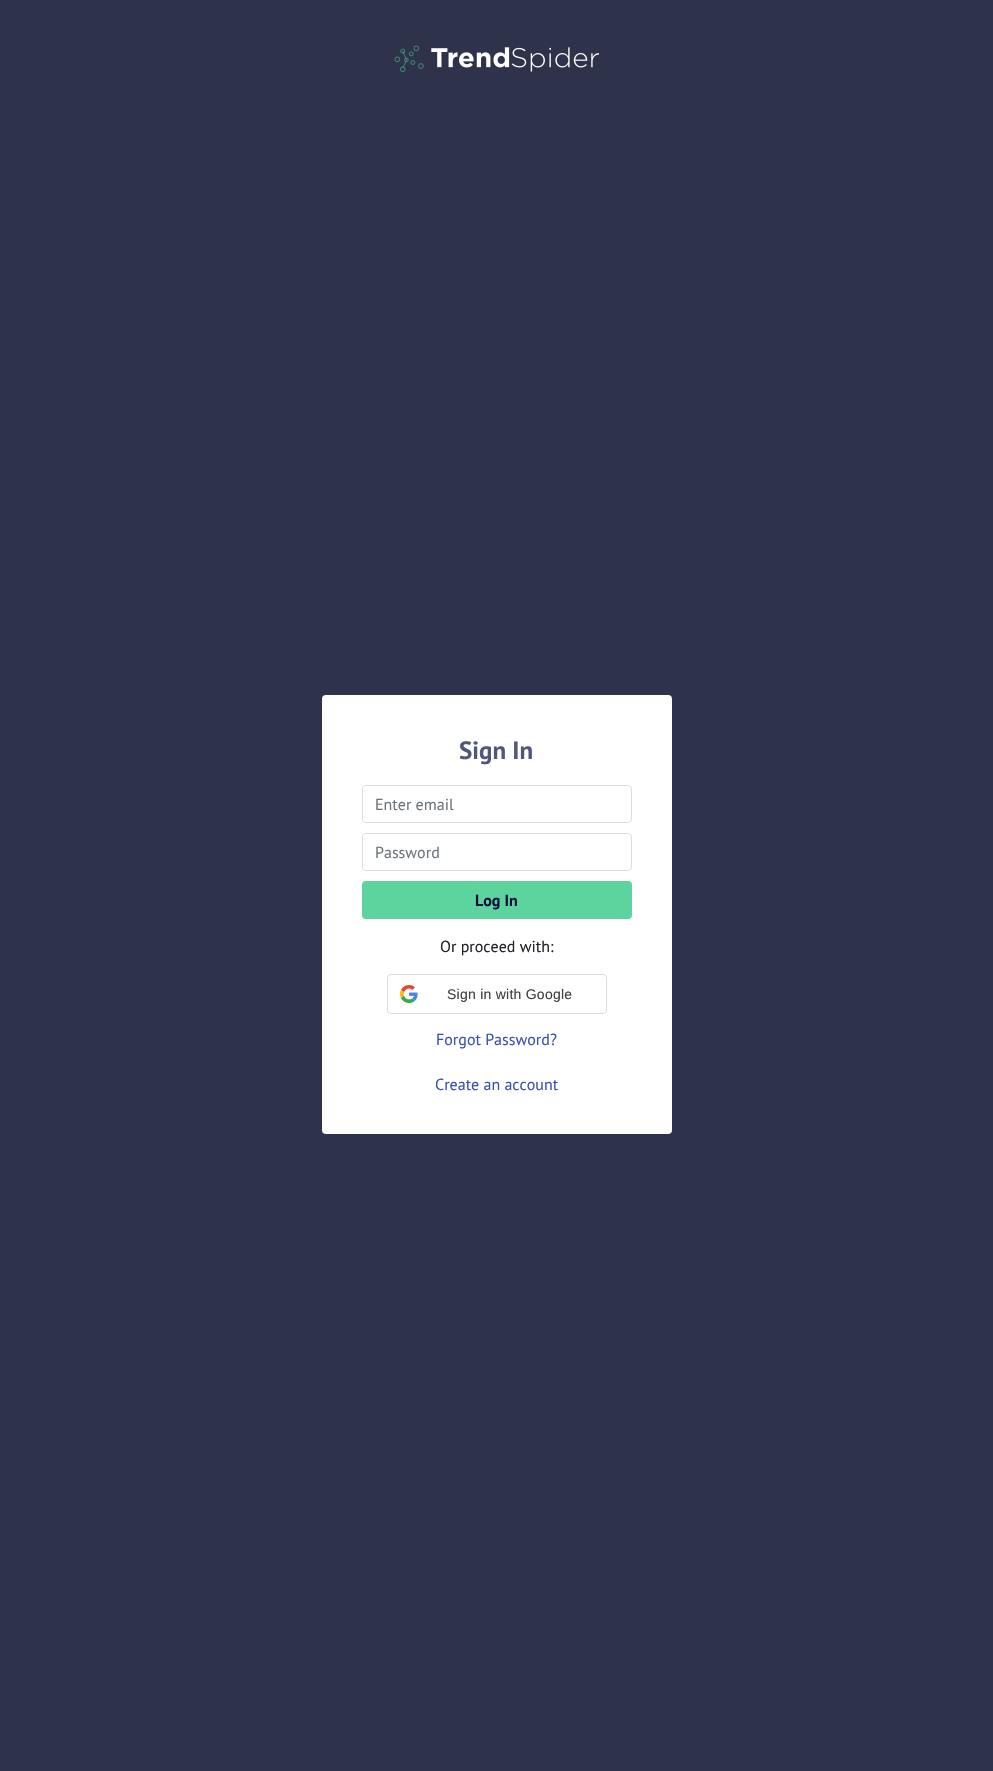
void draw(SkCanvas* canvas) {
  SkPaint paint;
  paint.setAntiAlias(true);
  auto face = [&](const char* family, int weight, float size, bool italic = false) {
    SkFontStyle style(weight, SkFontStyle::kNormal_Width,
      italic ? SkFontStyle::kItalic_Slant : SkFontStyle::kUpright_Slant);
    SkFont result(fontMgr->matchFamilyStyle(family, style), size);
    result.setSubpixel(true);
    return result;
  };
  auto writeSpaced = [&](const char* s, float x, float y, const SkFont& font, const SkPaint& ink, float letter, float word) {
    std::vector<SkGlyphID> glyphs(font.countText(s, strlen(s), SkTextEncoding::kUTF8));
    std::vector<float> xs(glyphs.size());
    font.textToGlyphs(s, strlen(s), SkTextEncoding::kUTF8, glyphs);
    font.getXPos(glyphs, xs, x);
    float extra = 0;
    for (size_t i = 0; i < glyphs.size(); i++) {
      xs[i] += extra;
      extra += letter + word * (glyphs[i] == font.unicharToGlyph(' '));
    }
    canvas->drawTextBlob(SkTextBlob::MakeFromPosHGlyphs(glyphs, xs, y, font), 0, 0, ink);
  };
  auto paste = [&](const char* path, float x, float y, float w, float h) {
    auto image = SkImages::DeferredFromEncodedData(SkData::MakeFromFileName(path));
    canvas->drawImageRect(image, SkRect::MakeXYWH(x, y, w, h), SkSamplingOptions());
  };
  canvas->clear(0xff2e324b);
  paste("img/1.png", 394, 45, 205, 27);
  paint.setColor(0xffffffff);
  canvas->drawRoundRect(SkRect::MakeXYWH(322, 695, 350, 439), 4, 4, paint);
  paint.setStroke(true);
  paint.setStrokeWidth(1);
  paint.setColor(0xffdadce0);
  canvas->drawRoundRect(SkRect::MakeXYWH(362.5f, 785.5f, 269, 37), 3.5f, 3.5f, paint);
  canvas->drawRoundRect(SkRect::MakeXYWH(362.5f, 833.5f, 269, 37), 3.5f, 3.5f, paint);
  paint.setStroke(false);
  paint.setColor(0xff5dd39e);
  canvas->drawRoundRect(SkRect::MakeXYWH(362, 881, 270, 38), 4, 4, paint);
  paint.setStroke(true);
  paint.setColor(0xffdadce0);
  canvas->drawRoundRect(SkRect::MakeXYWH(387.5f, 974.5f, 219, 39), 3.5f, 3.5f, paint);
  paste("img/2.png", 400, 985, 18, 18);
  auto f0 = face("PT Sans", 700, 25);
  paint.setStroke(false);
  paint.setColor(0xff50567c);
  canvas->drawString("Sign In", 459, 759, f0, paint);
  auto f1 = face("PT Sans", 400, 16);
  paint.setColor(0xff6c757d);
  canvas->drawString("Enter email", 375, 810, f1, paint);
  canvas->drawString("Password", 375, 858, f1, paint);
  auto f2 = face("PT Sans", 700, 16);
  paint.setColor(0xff0b103f);
  canvas->drawString("Log In", 475, 906, f2, paint);
  paint.setColor(0xff212529);
  canvas->drawString("Or proceed with:", 440, 952, f1, paint);
  auto f3 = face("Liberation Sans", 400, 14);
  paint.setColor(0xff3c4043);
  writeSpaced("Sign in with Google", 447, 999, f3, paint, 0.25f, 0);
  paint.setColor(0xff3952af);
  canvas->drawString("Forgot Password?", 436, 1045, f1, paint);
  canvas->drawString("Create an account", 435, 1090, f1, paint);
}
